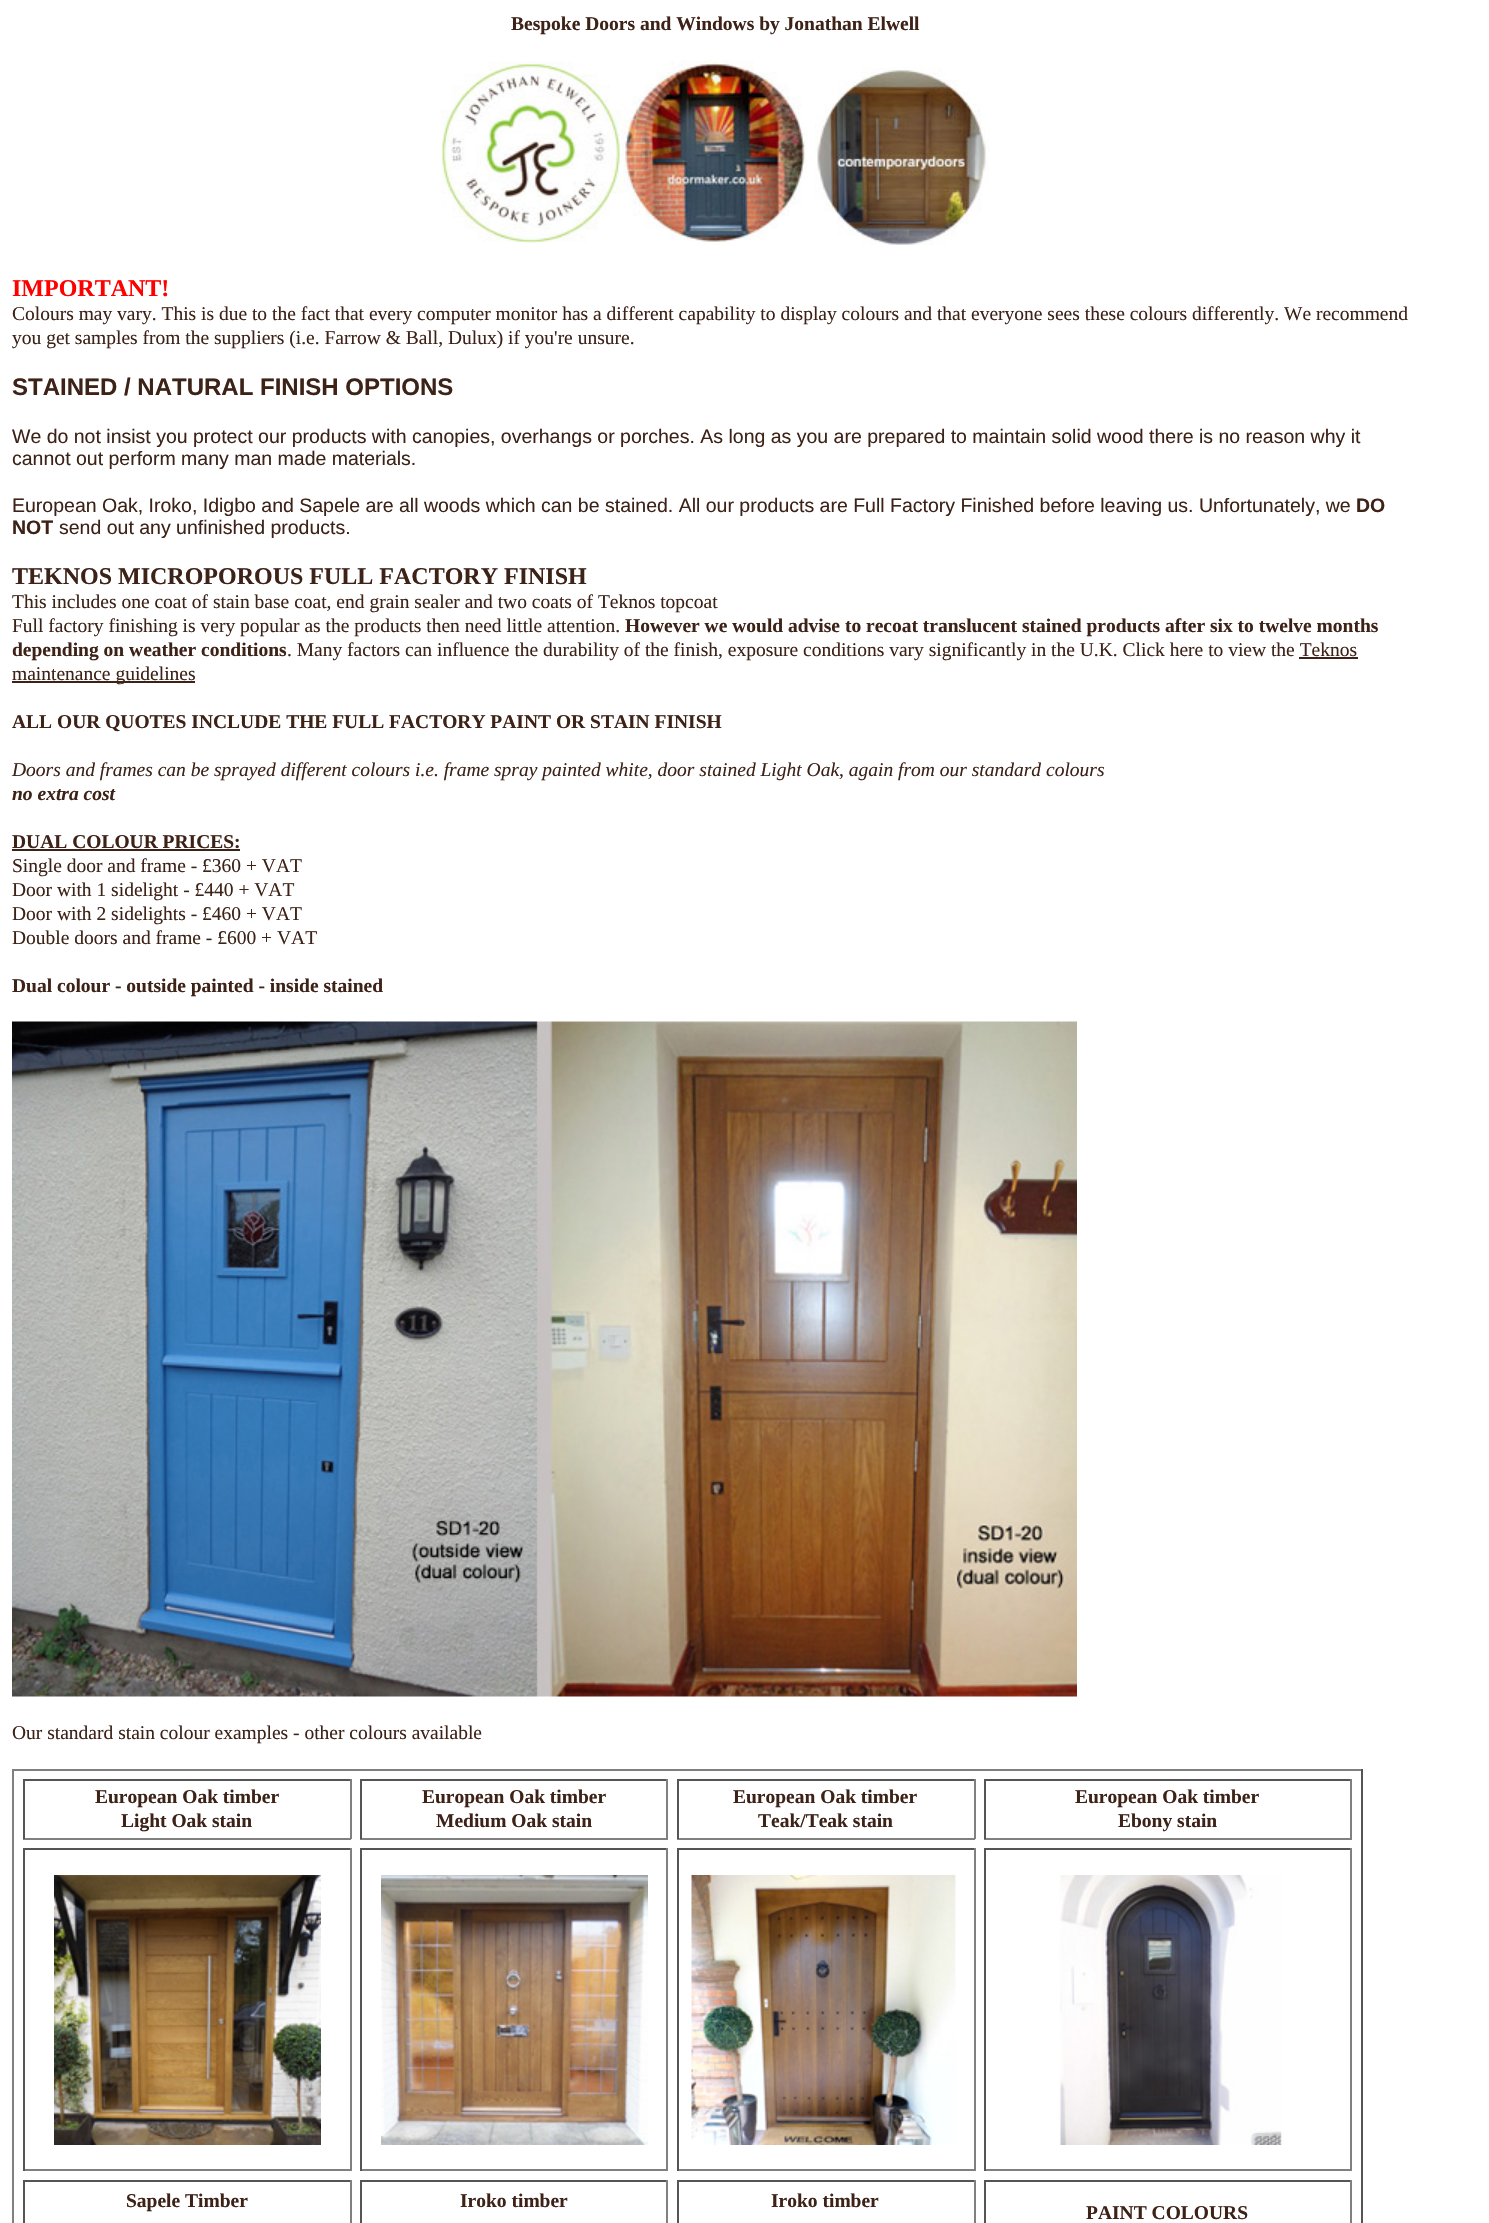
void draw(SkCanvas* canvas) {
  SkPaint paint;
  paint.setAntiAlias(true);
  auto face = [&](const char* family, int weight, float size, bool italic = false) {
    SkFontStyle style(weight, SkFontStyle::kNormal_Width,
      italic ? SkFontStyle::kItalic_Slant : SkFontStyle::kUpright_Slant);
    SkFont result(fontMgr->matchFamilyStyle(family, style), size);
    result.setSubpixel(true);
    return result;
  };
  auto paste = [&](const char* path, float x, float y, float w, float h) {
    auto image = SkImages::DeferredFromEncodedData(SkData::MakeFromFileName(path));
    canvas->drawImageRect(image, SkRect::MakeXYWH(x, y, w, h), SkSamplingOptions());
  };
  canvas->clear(0xffffffff);
  paste("img/1.png", 441, 61, 180, 182);
  paste("img/2.png", 621, 60, 187, 185);
  paste("img/3.png", 815, 67, 175, 178);
  {
    const struct { float x, y, w, h; SkColor color; } items[] = {
      {1299, 657, 59, 2, 0xff3d2217},
      {12, 681, 183, 2, 0xff3d2217},
      {12, 849, 228, 2, 0xff3d2217},
    };
    for (auto [x, y, w, h, color] : items) {
      paint.setColor(color);
      canvas->drawRect(SkRect::MakeXYWH(x, y, w, h), paint);
    }
  }
  paste("img/4.png", 12, 1021, 1065, 676);
  {
    const struct { float x, y, w, h; SkColor color; } items[] = {
      {12, 1769, 1350, 2, 0xff808080},
      {1361, 1769, 2, 454, 0xff555555},
      {12, 1769, 2, 454, 0xff808080},
      {23, 1779, 328, 2, 0xff555555},
      {350, 1779, 2, 60, 0xff808080},
      {23, 1838, 328, 2, 0xff808080},
      {23, 1779, 2, 60, 0xff555555},
      {360, 1779, 308, 2, 0xff555555},
      {666, 1779, 2, 60, 0xff808080},
      {360, 1838, 308, 2, 0xff808080},
      {360, 1779, 2, 60, 0xff555555},
      {677, 1779, 298, 2, 0xff555555},
      {974, 1779, 2, 60, 0xff808080},
      {677, 1838, 298, 2, 0xff808080},
      {677, 1779, 2, 60, 0xff555555},
      {984, 1779, 368, 2, 0xff555555},
      {1350, 1779, 2, 60, 0xff808080},
      {984, 1838, 368, 2, 0xff808080},
      {984, 1779, 2, 60, 0xff555555},
      {23, 1848, 328, 2, 0xff555555},
      {350, 1848, 2, 323, 0xff808080},
      {23, 2169, 328, 2, 0xff808080},
      {23, 1848, 2, 323, 0xff555555},
    };
    for (auto [x, y, w, h, color] : items) {
      paint.setColor(color);
      canvas->drawRect(SkRect::MakeXYWH(x, y, w, h), paint);
    }
  }
  paste("img/5.png", 54, 1875, 267, 270);
  {
    const struct { float x, y, w, h; SkColor color; } items[] = {
      {360, 1848, 308, 2, 0xff555555},
      {666, 1848, 2, 323, 0xff808080},
      {360, 2169, 308, 2, 0xff808080},
      {360, 1848, 2, 323, 0xff555555},
    };
    for (auto [x, y, w, h, color] : items) {
      paint.setColor(color);
      canvas->drawRect(SkRect::MakeXYWH(x, y, w, h), paint);
    }
  }
  paste("img/6.png", 381, 1875, 267, 270);
  {
    const struct { float x, y, w, h; SkColor color; } items[] = {
      {677, 1848, 298, 2, 0xff555555},
      {974, 1848, 2, 323, 0xff808080},
      {677, 2169, 298, 2, 0xff808080},
      {677, 1848, 2, 323, 0xff555555},
    };
    for (auto [x, y, w, h, color] : items) {
      paint.setColor(color);
      canvas->drawRect(SkRect::MakeXYWH(x, y, w, h), paint);
    }
  }
  paste("img/7.png", 691, 1875, 265, 270);
  {
    const struct { float x, y, w, h; SkColor color; } items[] = {
      {984, 1848, 368, 2, 0xff555555},
      {1350, 1848, 2, 323, 0xff808080},
      {984, 2169, 368, 2, 0xff808080},
      {984, 1848, 2, 323, 0xff555555},
    };
    for (auto [x, y, w, h, color] : items) {
      paint.setColor(color);
      canvas->drawRect(SkRect::MakeXYWH(x, y, w, h), paint);
    }
  }
  paste("img/8.png", 1058, 1875, 226, 270);
  {
    const struct { float x, y, w, h; SkColor color; } items[] = {
      {23, 2180, 328, 2, 0xff555555},
      {350, 2180, 2, 43, 0xff808080},
      {23, 2180, 2, 43, 0xff555555},
      {360, 2180, 308, 2, 0xff555555},
      {666, 2180, 2, 43, 0xff808080},
      {360, 2180, 2, 43, 0xff555555},
      {677, 2180, 298, 2, 0xff555555},
      {974, 2180, 2, 43, 0xff808080},
      {677, 2180, 2, 43, 0xff555555},
      {984, 2180, 368, 2, 0xff555555},
      {1350, 2180, 2, 43, 0xff808080},
      {984, 2180, 2, 43, 0xff555555},
    };
    for (auto [x, y, w, h, color] : items) {
      paint.setColor(color);
      canvas->drawRect(SkRect::MakeXYWH(x, y, w, h), paint);
    }
  }
  auto f0 = face("Liberation Serif", 700, 19.5f);
  paint.setColor(0xff3d2217);
  canvas->drawString("Bespoke Doors and Windows by Jonathan Elwell", 511, 30, f0, paint);
  auto f1 = face("Liberation Serif", 700, 24);
  paint.setColor(0xffff0000);
  canvas->drawString("IMPORTANT!", 12, 296, f1, paint);
  auto f2 = face("Liberation Serif", 400, 19.5f);
  paint.setColor(0xff3d2217);
  canvas->drawString("Colours may vary. This is due to the fact that every computer monitor has a different capability to display colours and that everyone sees these colours differently. We recommend", 12, 320, f2, paint);
  canvas->drawString("you get samples from the suppliers (i.e. Farrow & Ball, Dulux) if you're unsure.", 12, 344, f2, paint);
  auto f3 = face("Liberation Sans", 700, 24);
  canvas->drawString("STAINED / NATURAL FINISH OPTIONS", 12, 395, f3, paint);
  auto f4 = face("Liberation Sans", 400, 19.5f);
  {
    const struct { const char* s; float x, y; } items[] = {
      {"We do not insist you protect our products with canopies, overhangs or porches. As long as you are prepared to maintain solid wood there is no reason why it", 12, 443},
      {"cannot out perform many man made materials.", 12, 465},
      {"European Oak, Iroko, Idigbo and Sapele are all woods which can be stained. All our products are Full Factory Finished before leaving us. Unfortunately, we", 12, 512},
    };
    for (auto [s, x, y] : items) {
      canvas->drawString(s, x, y, f4, paint);
    }
  }
  auto f5 = face("Liberation Sans", 700, 19.5f);
  canvas->drawString("DO", 1356, 512, f5, paint);
  canvas->drawString("NOT", 12, 534, f5, paint);
  canvas->drawString("send out any unfinished products.", 59, 534, f4, paint);
  canvas->drawString("TEKNOS MICROPOROUS FULL FACTORY FINISH", 12, 584, f1, paint);
  canvas->drawString("This includes one coat of stain base coat, end grain sealer and two coats of Teknos topcoat", 12, 608, f2, paint);
  canvas->drawString("Full factory finishing is very popular as the products then need little attention.", 12, 632, f2, paint);
  canvas->drawString("However we would advise to recoat translucent stained products after six to twelve months", 625, 632, f0, paint);
  canvas->drawString("depending on weather conditions", 12, 656, f0, paint);
  canvas->drawString(". Many factors can influence the durability of the finish, exposure conditions vary significantly in the U.K. Click here to view the Teknos", 287, 656, f2, paint);
  canvas->drawString("maintenance guidelines", 12, 680, f2, paint);
  canvas->drawString("ALL OUR QUOTES INCLUDE THE FULL FACTORY PAINT OR STAIN FINISH", 12, 728, f0, paint);
  auto f6 = face("Liberation Serif", 400, 19.5f, true);
  canvas->drawString("Doors and frames can be sprayed different colours i.e. frame spray painted white, door stained Light Oak, again from our standard colours", 12, 776, f6, paint);
  auto f7 = face("Liberation Serif", 700, 19.5f, true);
  canvas->drawString("no extra cost", 12, 800, f7, paint);
  canvas->drawString("DUAL COLOUR PRICES:", 12, 848, f0, paint);
  {
    const struct { const char* s; float x, y; } items[] = {
      {"Single door and frame - £360 + VAT", 12, 872},
      {"Door with 1 sidelight - £440 + VAT", 12, 896},
      {"Door with 2 sidelights - £460 + VAT", 12, 920},
      {"Double doors and frame - £600 + VAT", 12, 944},
    };
    for (auto [s, x, y] : items) {
      canvas->drawString(s, x, y, f2, paint);
    }
  }
  canvas->drawString("Dual colour - outside painted - inside stained", 12, 992, f0, paint);
  canvas->drawString("Our standard stain colour examples - other colours available", 12, 1739, f2, paint);
  {
    const struct { const char* s; float x, y; } items[] = {
      {"European Oak timber", 95, 1803},
      {"Light Oak stain", 121, 1827},
      {"European Oak timber", 422, 1803},
      {"Medium Oak stain", 436, 1827},
      {"European Oak timber", 733, 1803},
      {"Teak/Teak stain", 758, 1827},
      {"European Oak timber", 1075, 1803},
      {"Ebony stain", 1118, 1827},
      {"Sapele Timber", 126, 2207},
      {"Iroko timber", 460, 2207},
      {"Iroko timber", 771, 2207},
      {"PAINT COLOURS", 1086, 2219},
    };
    for (auto [s, x, y] : items) {
      canvas->drawString(s, x, y, f0, paint);
    }
  }
}
